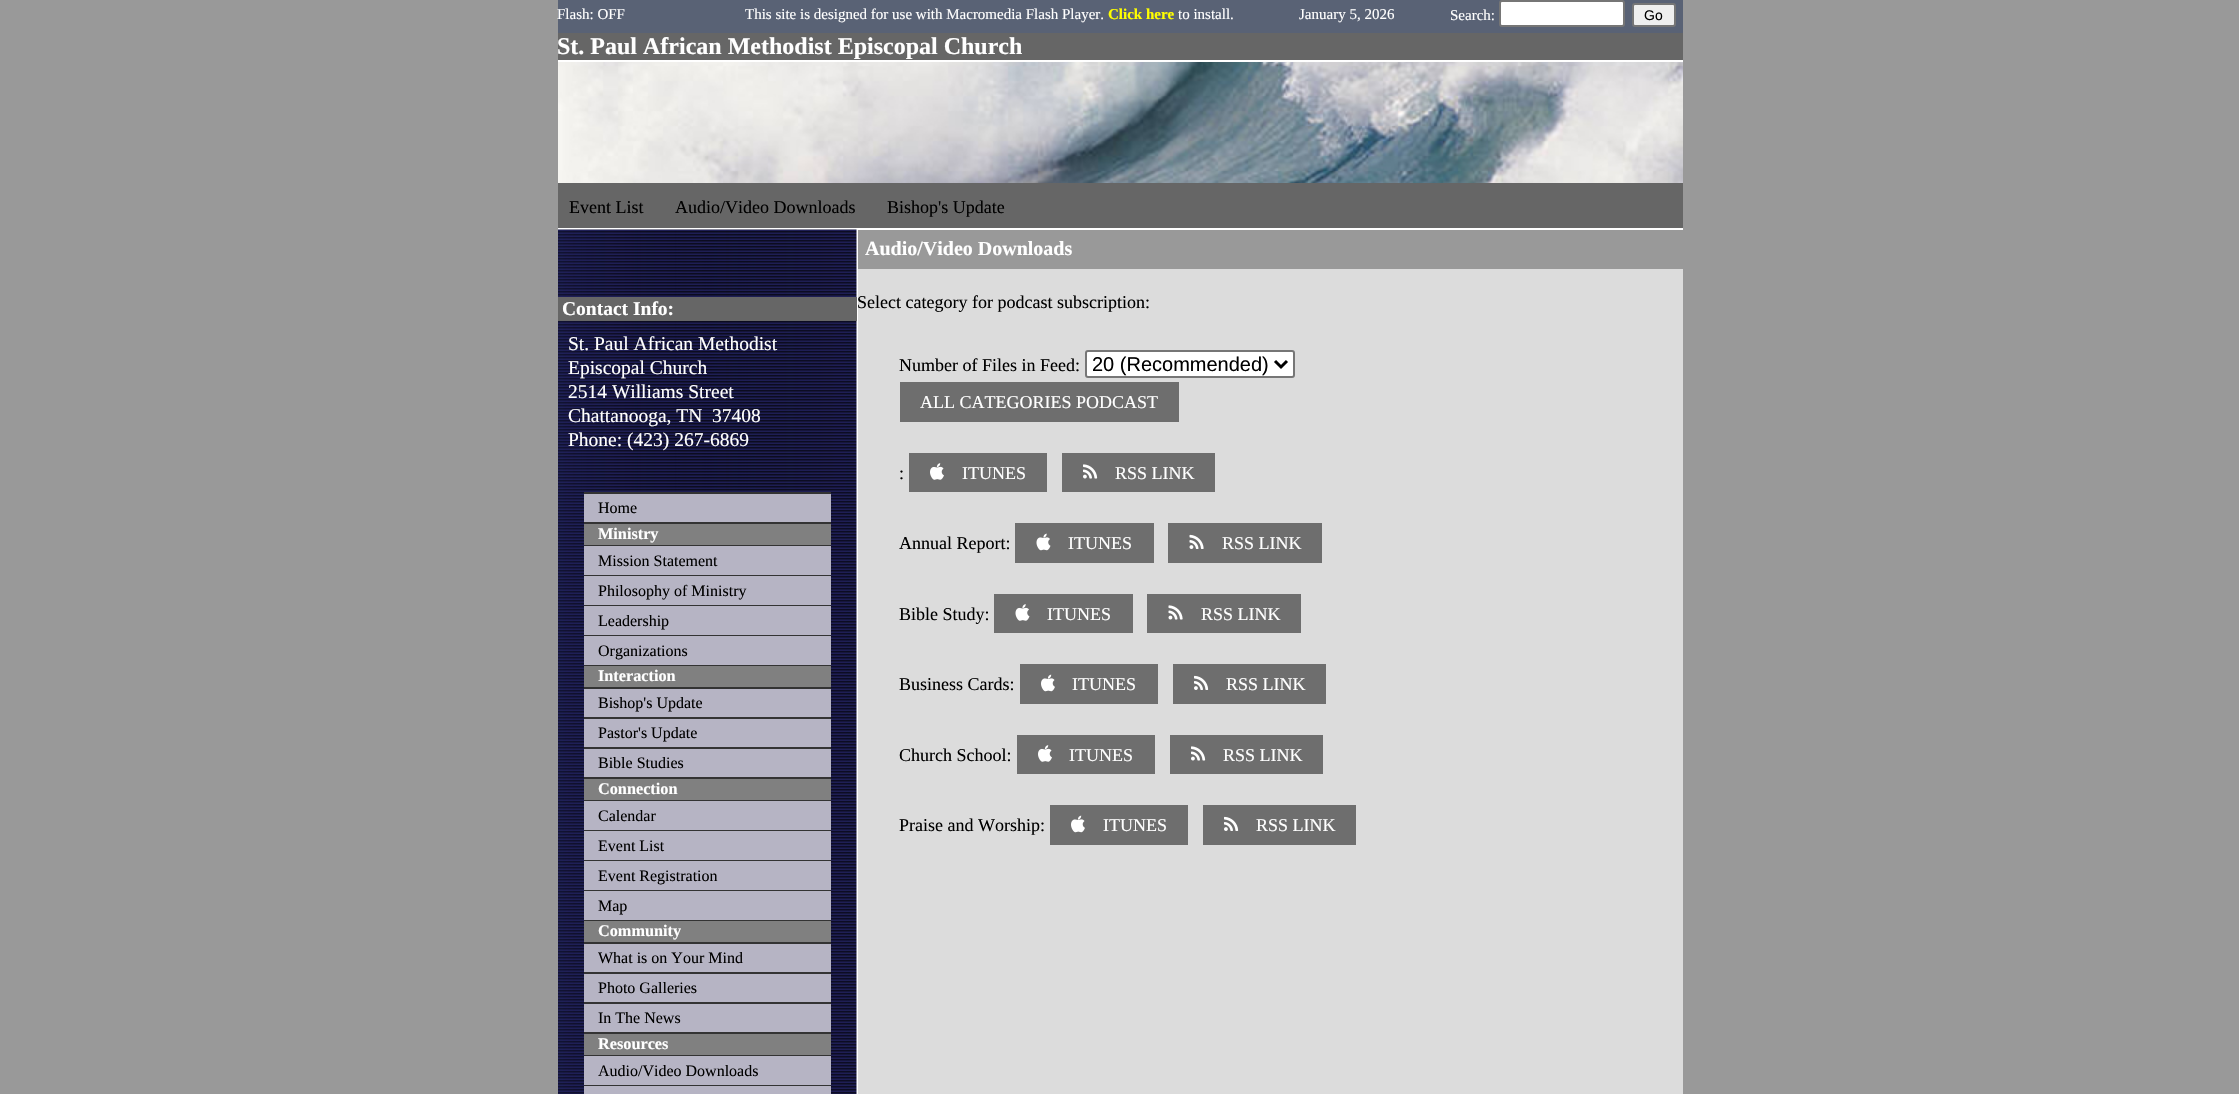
void draw(SkCanvas* canvas) {
  SkPaint paint;
  paint.setAntiAlias(true);
  auto face = [&](const char* family, int weight, float size, bool italic = false) {
    SkFontStyle style(weight, SkFontStyle::kNormal_Width,
      italic ? SkFontStyle::kItalic_Slant : SkFontStyle::kUpright_Slant);
    SkFont result(fontMgr->matchFamilyStyle(family, style), size);
    result.setSubpixel(true);
    return result;
  };
  auto paste = [&](const char* path, float x, float y, float w, float h) {
    auto image = SkImages::DeferredFromEncodedData(SkData::MakeFromFileName(path));
    canvas->drawImageRect(image, SkRect::MakeXYWH(x, y, w, h), SkSamplingOptions());
  };
  auto shape = [&](const char* data, bool evenOdd = false) {
    SkPath result = *SkParsePath::FromSVGString(data);
    if (evenOdd) result.setFillType(SkPathFillType::kEvenOdd);
    return result;
  };
  canvas->clear(0xff999999);
  paint.setColor(0xff596275);
  canvas->drawRect(SkRect::MakeXYWH(558, 0, 1125, 33), paint);
  paint.setColor(0xffffffff);
  canvas->drawRoundRect(SkRect::MakeXYWH(1500, 1, 124, 25), 2, 2, paint);
  paint.setStroke(true);
  paint.setStrokeWidth(2);
  paint.setColor(0xff767676);
  canvas->drawRoundRect(SkRect::MakeXYWH(1500, 1, 124, 25), 2, 2, paint);
  paint.setStroke(false);
  paint.setColor(0xffefefef);
  canvas->drawRoundRect(SkRect::MakeXYWH(1633, 4, 42, 22), 2, 2, paint);
  paint.setStroke(true);
  paint.setColor(0xff767676);
  canvas->drawRoundRect(SkRect::MakeXYWH(1633, 4, 42, 22), 2, 2, paint);
  paste("img/1.png", 558, 62, 1125, 121);
  paint.setStroke(false);
  {
    const struct { float x, y, w, h; SkColor color; } items[] = {
      {558, 33, 1125, 27, 0xff666666},
      {558, 60, 1125, 2, 0xffffffff},
      {558, 183, 1125, 45, 0xff666666},
      {558, 228, 1125, 2, 0xffffffff},
      {856, 230, 2, 864, 0xffffffff},
    };
    for (auto [x, y, w, h, color] : items) {
      paint.setColor(color);
      canvas->drawRect(SkRect::MakeXYWH(x, y, w, h), paint);
    }
  }
  paste("img/2.png", 558, 229, 299, 865);
  {
    const struct { float x, y, w, h; SkColor color; } items[] = {
      {558, 297, 299, 24, 0xff666666},
      {584, 492, 247, 2, 0xff333333},
      {584, 522, 247, 2, 0xff333333},
      {584, 494, 247, 28, 0xffb6b4c4},
      {584, 524, 247, 21, 0xff808080},
      {584, 545, 247, 1, 0xff333333},
      {584, 575, 247, 1, 0xff333333},
      {584, 546, 247, 29, 0xffb6b4c4},
      {584, 605, 247, 1, 0xff333333},
      {584, 576, 247, 29, 0xffb6b4c4},
      {584, 635, 247, 1, 0xff333333},
      {584, 606, 247, 29, 0xffb6b4c4},
      {584, 665, 247, 1, 0xff333333},
      {584, 636, 247, 29, 0xffb6b4c4},
      {584, 666, 247, 21, 0xff808080},
      {584, 687, 247, 2, 0xff333333},
      {584, 717, 247, 2, 0xff333333},
      {584, 689, 247, 28, 0xffb6b4c4},
      {584, 747, 247, 2, 0xff333333},
      {584, 719, 247, 28, 0xffb6b4c4},
      {584, 777, 247, 2, 0xff333333},
      {584, 749, 247, 28, 0xffb6b4c4},
      {584, 779, 247, 21, 0xff808080},
      {584, 800, 247, 1, 0xff333333},
      {584, 830, 247, 1, 0xff333333},
      {584, 801, 247, 29, 0xffb6b4c4},
      {584, 860, 247, 1, 0xff333333},
      {584, 831, 247, 29, 0xffb6b4c4},
      {584, 890, 247, 1, 0xff333333},
      {584, 861, 247, 29, 0xffb6b4c4},
      {584, 920, 247, 1, 0xff333333},
      {584, 891, 247, 29, 0xffb6b4c4},
      {584, 921, 247, 21, 0xff808080},
      {584, 942, 247, 2, 0xff333333},
      {584, 972, 247, 2, 0xff333333},
      {584, 944, 247, 28, 0xffb6b4c4},
      {584, 1002, 247, 2, 0xff333333},
      {584, 974, 247, 28, 0xffb6b4c4},
      {584, 1032, 247, 2, 0xff333333},
      {584, 1004, 247, 28, 0xffb6b4c4},
      {584, 1034, 247, 21, 0xff808080},
      {584, 1055, 247, 1, 0xff333333},
      {584, 1085, 247, 1, 0xff333333},
      {584, 1056, 247, 29, 0xffb6b4c4},
      {584, 1086, 247, 8, 0xffb6b4c4},
      {858, 269, 825, 825, 0xffdcdcdc},
    };
    for (auto [x, y, w, h, color] : items) {
      paint.setColor(color);
      canvas->drawRect(SkRect::MakeXYWH(x, y, w, h), paint);
    }
  }
  paint.setColor(0xffffffff);
  canvas->drawRoundRect(SkRect::MakeXYWH(1086, 351, 208, 26), 2, 2, paint);
  paint.setStroke(true);
  paint.setColor(0xff767676);
  canvas->drawRoundRect(SkRect::MakeXYWH(1086, 351, 208, 26), 2, 2, paint);
  paint.setStrokeWidth(3);
  paint.setColor(0xff000000);
  canvas->drawPath(shape("M1275 361L1281 367L1287 361"), paint);
  paint.setStroke(false);
  paint.setColor(0xff6e6e6e);
  canvas->drawRect(SkRect::MakeXYWH(900, 382, 279, 40), paint);
  canvas->drawRect(SkRect::MakeXYWH(909, 453, 138, 39), paint);
  paste("img/3.png", 930, 463, 14, 17);
  canvas->drawRect(SkRect::MakeXYWH(1062, 453, 153, 39), paint);
  paste("img/4.png", 1083, 464, 15, 15);
  canvas->drawRect(SkRect::MakeXYWH(1015, 523, 139, 40), paint);
  paste("img/5.png", 1036, 533, 15, 18);
  canvas->drawRect(SkRect::MakeXYWH(1168, 523, 154, 40), paint);
  paste("img/6.png", 1189, 534, 15, 15);
  canvas->drawRect(SkRect::MakeXYWH(994, 594, 139, 39), paint);
  paste("img/7.png", 1015, 604, 15, 17);
  canvas->drawRect(SkRect::MakeXYWH(1147, 594, 154, 39), paint);
  paste("img/8.png", 1168, 605, 15, 15);
  canvas->drawRect(SkRect::MakeXYWH(1020, 664, 138, 40), paint);
  paste("img/9.png", 1041, 674, 14, 18);
  canvas->drawRect(SkRect::MakeXYWH(1173, 664, 153, 40), paint);
  paste("img/10.png", 1194, 675, 15, 15);
  canvas->drawRect(SkRect::MakeXYWH(1017, 735, 138, 39), paint);
  paste("img/3.png", 1038, 745, 14, 17);
  canvas->drawRect(SkRect::MakeXYWH(1170, 735, 153, 39), paint);
  paste("img/4.png", 1191, 746, 15, 15);
  canvas->drawRect(SkRect::MakeXYWH(1050, 805, 138, 40), paint);
  paste("img/9.png", 1071, 815, 14, 18);
  canvas->drawRect(SkRect::MakeXYWH(1203, 805, 153, 40), paint);
  paste("img/10.png", 1224, 816, 15, 15);
  auto f0 = face("Liberation Serif", 400, 15);
  paint.setColor(0xffffffff);
  canvas->drawString("Flash: OFF", 557, 19, f0, paint);
  canvas->drawString("This site is designed for use with Macromedia Flash Player.", 745, 19, f0, paint);
  auto f1 = face("Liberation Serif", 700, 15);
  paint.setColor(0xffffff00);
  canvas->drawString("Click here", 1108, 19, f1, paint);
  paint.setColor(0xffffffff);
  {
    const struct { const char* s; float x, y; } items[] = {
      {"to install.", 1178, 19},
      {"January 5, 2026", 1299, 19},
      {"Search:", 1450, 20},
    };
    for (auto [s, x, y] : items) {
      canvas->drawString(s, x, y, f0, paint);
    }
  }
  auto f2 = face("Liberation Sans", 400, 14);
  paint.setColor(0xff000000);
  canvas->drawString("Go", 1644, 20, f2, paint);
  auto f3 = face("Liberation Serif", 700, 24);
  paint.setColor(0xffffffff);
  canvas->drawString("St. Paul African Methodist Episcopal Church", 557, 54, f3, paint);
  auto f4 = face("Liberation Serif", 700, 19.5f);
  canvas->drawString("Contact Info:", 562, 315, f4, paint);
  auto f5 = face("Liberation Serif", 400, 19.5f);
  {
    const struct { const char* s; float x, y; } items[] = {
      {"St. Paul African Methodist", 568, 350},
      {"Episcopal Church", 568, 374},
      {"2514 Williams Street", 568, 398},
      {"Chattanooga, TN  37408", 568, 422},
      {"Phone: (423) 267-6869", 568, 446},
    };
    for (auto [s, x, y] : items) {
      canvas->drawString(s, x, y, f5, paint);
    }
  }
  auto f6 = face("Liberation Serif", 400, 16);
  paint.setColor(0xff000000);
  canvas->drawString("Home", 598, 513, f6, paint);
  auto f7 = face("Liberation Serif", 700, 16.25f);
  paint.setColor(0xffffffff);
  canvas->drawString("Ministry", 598, 539, f7, paint);
  paint.setColor(0xff000000);
  {
    const struct { const char* s; float x, y; } items[] = {
      {"Mission Statement", 598, 566},
      {"Philosophy of Ministry", 598, 596},
      {"Leadership", 598, 626},
      {"Organizations", 598, 656},
    };
    for (auto [s, x, y] : items) {
      canvas->drawString(s, x, y, f6, paint);
    }
  }
  paint.setColor(0xffffffff);
  canvas->drawString("Interaction", 598, 681, f7, paint);
  paint.setColor(0xff000000);
  {
    const struct { const char* s; float x, y; } items[] = {
      {"Bishop's Update", 598, 708},
      {"Pastor's Update", 598, 738},
      {"Bible Studies", 598, 768},
    };
    for (auto [s, x, y] : items) {
      canvas->drawString(s, x, y, f6, paint);
    }
  }
  paint.setColor(0xffffffff);
  canvas->drawString("Connection", 598, 794, f7, paint);
  paint.setColor(0xff000000);
  {
    const struct { const char* s; float x, y; } items[] = {
      {"Calendar", 598, 821},
      {"Event List", 598, 851},
      {"Event Registration", 598, 881},
      {"Map", 598, 911},
    };
    for (auto [s, x, y] : items) {
      canvas->drawString(s, x, y, f6, paint);
    }
  }
  paint.setColor(0xffffffff);
  canvas->drawString("Community", 598, 936, f7, paint);
  paint.setColor(0xff000000);
  {
    const struct { const char* s; float x, y; } items[] = {
      {"What is on Your Mind", 598, 963},
      {"Photo Galleries", 598, 993},
      {"In The News", 598, 1023},
    };
    for (auto [s, x, y] : items) {
      canvas->drawString(s, x, y, f6, paint);
    }
  }
  paint.setColor(0xffffffff);
  canvas->drawString("Resources", 598, 1049, f7, paint);
  paint.setColor(0xff000000);
  canvas->drawString("Audio/Video Downloads", 598, 1076, f6, paint);
  auto f8 = face("Liberation Serif", 700, 20);
  paint.setColor(0xffffffff);
  canvas->drawString("Audio/Video Downloads", 865, 255, f8, paint);
  auto f9 = face("Liberation Serif", 400, 18);
  paint.setColor(0xff000000);
  canvas->drawString("Select category for podcast subscription:", 857, 308, f9, paint);
  canvas->drawString("Number of Files in Feed:", 899, 371, f9, paint);
  auto f10 = face("Liberation Sans", 400, 20);
  canvas->drawString("20 (Recommended)", 1092, 371, f10, paint);
  paint.setColor(0xffffffff);
  canvas->drawString("ALL CATEGORIES PODCAST", 920, 408, f9, paint);
  paint.setColor(0xff000000);
  canvas->drawString(":", 899, 479, f9, paint);
  paint.setColor(0xffffffff);
  canvas->drawString("ITUNES", 962, 479, f9, paint);
  canvas->drawString("RSS LINK", 1115, 479, f9, paint);
  paint.setColor(0xff000000);
  canvas->drawString("Annual Report:", 899, 549, f9, paint);
  paint.setColor(0xffffffff);
  canvas->drawString("ITUNES", 1068, 549, f9, paint);
  canvas->drawString("RSS LINK", 1222, 549, f9, paint);
  paint.setColor(0xff000000);
  canvas->drawString("Bible Study:", 899, 620, f9, paint);
  paint.setColor(0xffffffff);
  canvas->drawString("ITUNES", 1047, 620, f9, paint);
  canvas->drawString("RSS LINK", 1201, 620, f9, paint);
  paint.setColor(0xff000000);
  canvas->drawString("Business Cards:", 899, 690, f9, paint);
  paint.setColor(0xffffffff);
  canvas->drawString("ITUNES", 1072, 690, f9, paint);
  canvas->drawString("RSS LINK", 1226, 690, f9, paint);
  paint.setColor(0xff000000);
  canvas->drawString("Church School:", 899, 761, f9, paint);
  paint.setColor(0xffffffff);
  canvas->drawString("ITUNES", 1069, 761, f9, paint);
  canvas->drawString("RSS LINK", 1223, 761, f9, paint);
  paint.setColor(0xff000000);
  canvas->drawString("Praise and Worship:", 899, 831, f9, paint);
  paint.setColor(0xffffffff);
  canvas->drawString("ITUNES", 1103, 831, f9, paint);
  canvas->drawString("RSS LINK", 1256, 831, f9, paint);
  paint.setColor(0xff000000);
  {
    const struct { const char* s; float x, y; } items[] = {
      {"Event List", 569, 213},
      {"Audio/Video Downloads", 675, 213},
      {"Bishop's Update", 887, 213},
    };
    for (auto [s, x, y] : items) {
      canvas->drawString(s, x, y, f9, paint);
    }
  }
}
